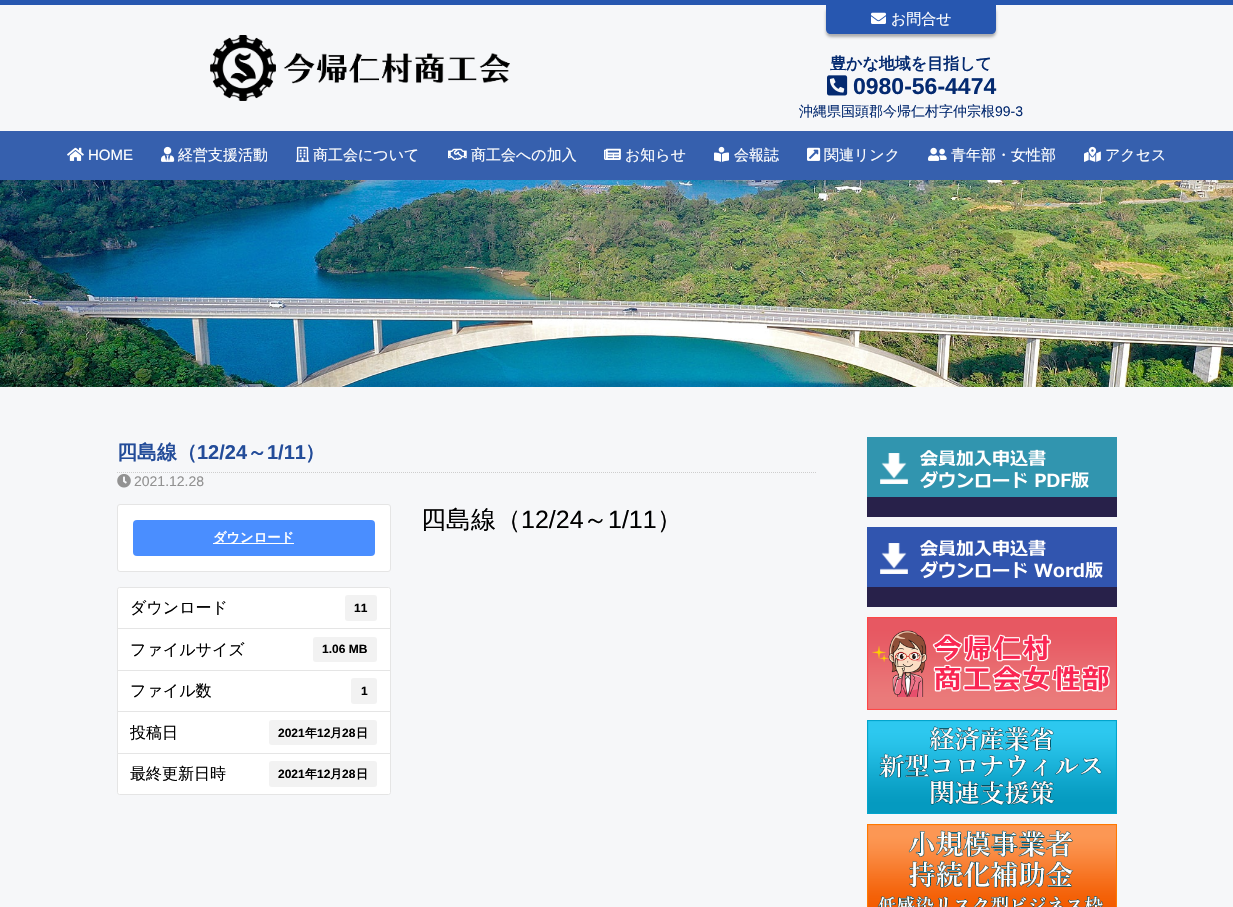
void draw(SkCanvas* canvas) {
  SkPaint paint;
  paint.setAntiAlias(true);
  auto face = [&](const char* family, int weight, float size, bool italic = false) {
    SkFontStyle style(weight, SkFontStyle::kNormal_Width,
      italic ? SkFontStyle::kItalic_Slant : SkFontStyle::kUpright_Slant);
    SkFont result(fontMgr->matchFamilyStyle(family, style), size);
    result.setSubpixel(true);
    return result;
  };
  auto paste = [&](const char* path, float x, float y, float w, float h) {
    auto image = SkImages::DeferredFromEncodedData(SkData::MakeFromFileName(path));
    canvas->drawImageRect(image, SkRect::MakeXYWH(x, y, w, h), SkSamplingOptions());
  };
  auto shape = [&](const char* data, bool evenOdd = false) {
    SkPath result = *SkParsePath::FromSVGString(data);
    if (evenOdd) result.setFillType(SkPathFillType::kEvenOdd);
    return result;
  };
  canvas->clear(0xfff6f7f9);
  paint.setColor(0xff2757b0);
  canvas->drawRect(SkRect::MakeXYWH(0, 0, 1233, 5), paint);
  paste("img/1.png", 210, 35, 300, 66);
  paint.setColor(0x4d000000);
  paint.setMaskFilter(SkMaskFilter::MakeBlur(kNormal_SkBlurStyle, 1.5f));
  canvas->drawRoundRect(SkRect::MakeXYWH(826, 8, 170, 29), 5, 5, paint);
  paint.setMaskFilter(nullptr);
  paint.setColor(0xff2757b0);
  canvas->drawPath(shape("M826 5H996V29C996 32 994 34 991 34H831C828 34 826 32 826 29Z"), paint);
  paste("img/2.png", 871, 12, 15, 12);
  paste("img/3.png", 827, 75, 21, 21);
  paint.setColor(0xff3660ae);
  canvas->drawRect(SkRect::MakeXYWH(0, 131, 1233, 49), paint);
  paste("img/4.png", 67, 147, 17, 14);
  paste("img/5.png", 161, 146, 14, 16);
  paste("img/6.png", 296, 146, 14, 16);
  paste("img/7.png", 448, 148, 19, 12);
  paste("img/8.png", 604, 148, 17, 12);
  paste("img/9.png", 714, 146, 15, 16);
  paste("img/10.png", 807, 147, 14, 14);
  paste("img/11.png", 928, 147, 19, 14);
  paste("img/12.png", 1084, 146, 17, 16);
  paste("img/13.png", 0, 180, 1233, 207);
  paint.setStroke(true);
  paint.setStrokeWidth(1);
  paint.setColor(0xffcecece);
  paint.setPathEffect(SkDashPathEffect::Make({{1, 1}}, 0));
  canvas->drawPath(shape("M117 472.5H817"), paint);
  paint.setPathEffect(nullptr);
  paste("img/14.png", 117, 474, 14, 14);
  paint.setStroke(false);
  paint.setColor(0xffffffff);
  canvas->drawRoundRect(SkRect::MakeXYWH(117.5f, 504.5f, 273, 67), 2.5f, 2.5f, paint);
  paint.setStroke(true);
  paint.setColor(0xffe5e5e5);
  canvas->drawRoundRect(SkRect::MakeXYWH(117.5f, 504.5f, 273, 67), 2.5f, 2.5f, paint);
  paint.setStroke(false);
  paint.setColor(0xff4a8eff);
  canvas->drawRoundRect(SkRect::MakeXYWH(133, 520, 242, 36), 4, 4, paint);
  paint.setColor(0xffffffff);
  canvas->drawRect(SkRect::MakeXYWH(213, 543, 81, 1), paint);
  canvas->drawPath(shape("M119.5 587.5H388.5C389.5 587.5 390.5 588.5 390.5 589.5V628.5H117.5V589.5C117.5 588.5 118.5 587.5 119.5 587.5Z"), paint);
  paint.setStroke(true);
  paint.setColor(0xffe5e5e5);
  canvas->drawPath(shape("M119.5 587.5H388.5C389.5 587.5 390.5 588.5 390.5 589.5V628.5H117.5V589.5C117.5 588.5 118.5 587.5 119.5 587.5Z"), paint);
  paint.setStroke(false);
  paint.setColor(0xfff2f2f2);
  canvas->drawRoundRect(SkRect::MakeXYWH(345, 595, 32, 26), 3, 3, paint);
  paint.setColor(0xffffffff);
  canvas->drawRect(SkRect::MakeXYWH(117.5f, 628.5f, 273, 42), paint);
  paint.setStroke(true);
  paint.setColor(0xffe5e5e5);
  canvas->drawRect(SkRect::MakeXYWH(117.5f, 628.5f, 273, 42), paint);
  paint.setStroke(false);
  paint.setColor(0xfff2f2f2);
  canvas->drawRoundRect(SkRect::MakeXYWH(313, 637, 64, 25), 3, 3, paint);
  paint.setColor(0xffffffff);
  canvas->drawRect(SkRect::MakeXYWH(117.5f, 670.5f, 273, 41), paint);
  paint.setStroke(true);
  paint.setColor(0xffe5e5e5);
  canvas->drawRect(SkRect::MakeXYWH(117.5f, 670.5f, 273, 41), paint);
  paint.setStroke(false);
  paint.setColor(0xfff2f2f2);
  canvas->drawRoundRect(SkRect::MakeXYWH(351, 678, 26, 26), 3, 3, paint);
  paint.setColor(0xffffffff);
  canvas->drawRect(SkRect::MakeXYWH(117.5f, 711.5f, 273, 42), paint);
  paint.setStroke(true);
  paint.setColor(0xffe5e5e5);
  canvas->drawRect(SkRect::MakeXYWH(117.5f, 711.5f, 273, 42), paint);
  paint.setStroke(false);
  paint.setColor(0xfff2f2f2);
  canvas->drawRoundRect(SkRect::MakeXYWH(269, 720, 108, 25), 3, 3, paint);
  paint.setColor(0xffffffff);
  canvas->drawPath(shape("M117.5 753.5H390.5V792.5C390.5 793.5 389.5 794.5 388.5 794.5H119.5C118.5 794.5 117.5 793.5 117.5 792.5Z"), paint);
  paint.setStroke(true);
  paint.setColor(0xffe5e5e5);
  canvas->drawPath(shape("M117.5 753.5H390.5V792.5C390.5 793.5 389.5 794.5 388.5 794.5H119.5C118.5 794.5 117.5 793.5 117.5 792.5Z"), paint);
  paint.setStroke(false);
  paint.setColor(0xfff2f2f2);
  canvas->drawRoundRect(SkRect::MakeXYWH(269, 761, 108, 26), 3, 3, paint);
  paste("img/15.png", 867, 437, 250, 80);
  paste("img/16.png", 867, 527, 250, 80);
  paste("img/17.png", 867, 617, 250, 93);
  paste("img/18.png", 867, 720, 250, 94);
  paste("img/19.png", 867, 824, 250, 83);
  auto f0 = face("WenQuanYi Zen Hei", 500, 15);
  paint.setColor(0xffffffff);
  canvas->drawString("お問合せ", 891, 24, f0, paint);
  auto f1 = face("WenQuanYi Zen Hei", 700, 16);
  paint.setColor(0xff042a70);
  canvas->drawString("豊かな地域を目指して", 830, 69, f1, paint);
  auto f2 = face("Liberation Sans", 700, 23);
  canvas->drawString("0980-56-4474", 853, 94, f2, paint);
  auto f3 = face("WenQuanYi Zen Hei", 500, 14);
  canvas->drawString("沖縄県国頭郡今帰仁村字仲宗根", 799, 116, f3, paint);
  auto f4 = face("Liberation Sans", 400, 14);
  canvas->drawString("99-3", 995, 116, f4, paint);
  auto f5 = face("Liberation Sans", 400, 15);
  paint.setColor(0xffffffff);
  canvas->drawString("HOME", 88, 160, f5, paint);
  {
    const struct { const char* s; float x, y; } items[] = {
      {"経営支援活動", 178, 160},
      {"商工会について", 313, 160},
      {"商工会への加入", 471, 160},
      {"お知らせ", 625, 160},
      {"会報誌", 734, 160},
      {"関連リンク", 824, 160},
      {"青年部・女性部", 951, 160},
      {"アクセス", 1105, 160},
    };
    for (auto [s, x, y] : items) {
      canvas->drawString(s, x, y, f0, paint);
    }
  }
  auto f6 = face("WenQuanYi Zen Hei", 700, 20);
  paint.setColor(0xff234c99);
  canvas->drawString("四島線（", 117, 459, f6, paint);
  auto f7 = face("Liberation Sans", 700, 20);
  canvas->drawString("12/24", 197, 459, f7, paint);
  canvas->drawString("～", 247, 459, f6, paint);
  canvas->drawString("1/11", 267, 459, f7, paint);
  canvas->drawString("）", 305, 459, f6, paint);
  paint.setColor(0xff929292);
  canvas->drawString("2021.12.28", 134, 486, f4, paint);
  auto f8 = face("WenQuanYi Zen Hei", 500, 25);
  paint.setColor(0xff000000);
  canvas->drawString("四島線（", 421, 528, f8, paint);
  auto f9 = face("Liberation Sans", 400, 25);
  canvas->drawString("12/24", 521, 528, f9, paint);
  canvas->drawString("～", 583, 528, f8, paint);
  canvas->drawString("1/11", 608, 528, f9, paint);
  canvas->drawString("）", 657, 528, f8, paint);
  auto f10 = face("WenQuanYi Zen Hei", 700, 13.25f);
  paint.setColor(0xffffffff);
  canvas->drawString("ダウンロード", 213, 542, f10, paint);
  auto f11 = face("WenQuanYi Zen Hei", 500, 16);
  paint.setColor(0xff000000);
  canvas->drawString("ダウンロード", 130, 613, f11, paint);
  auto f12 = face("Liberation Sans", 700, 12);
  canvas->drawString("11", 354, 612, f12, paint);
  canvas->drawString("ファイルサイズ", 130, 655, f11, paint);
  canvas->drawString("1.06 MB", 322, 653, f12, paint);
  canvas->drawString("ファイル数", 130, 696, f11, paint);
  canvas->drawString("1", 361, 695, f12, paint);
  canvas->drawString("投稿日", 130, 738, f11, paint);
  canvas->drawString("2021", 278, 737, f12, paint);
  auto f13 = face("WenQuanYi Zen Hei", 700, 12);
  canvas->drawString("年", 305, 737, f13, paint);
  canvas->drawString("12", 317, 737, f12, paint);
  canvas->drawString("月", 330, 737, f13, paint);
  canvas->drawString("28", 342, 737, f12, paint);
  canvas->drawString("日", 356, 737, f13, paint);
  canvas->drawString("最終更新日時", 130, 779, f11, paint);
  canvas->drawString("2021", 278, 778, f12, paint);
  canvas->drawString("年", 305, 778, f13, paint);
  canvas->drawString("12", 317, 778, f12, paint);
  canvas->drawString("月", 330, 778, f13, paint);
  canvas->drawString("28", 342, 778, f12, paint);
  canvas->drawString("日", 356, 778, f13, paint);
}
